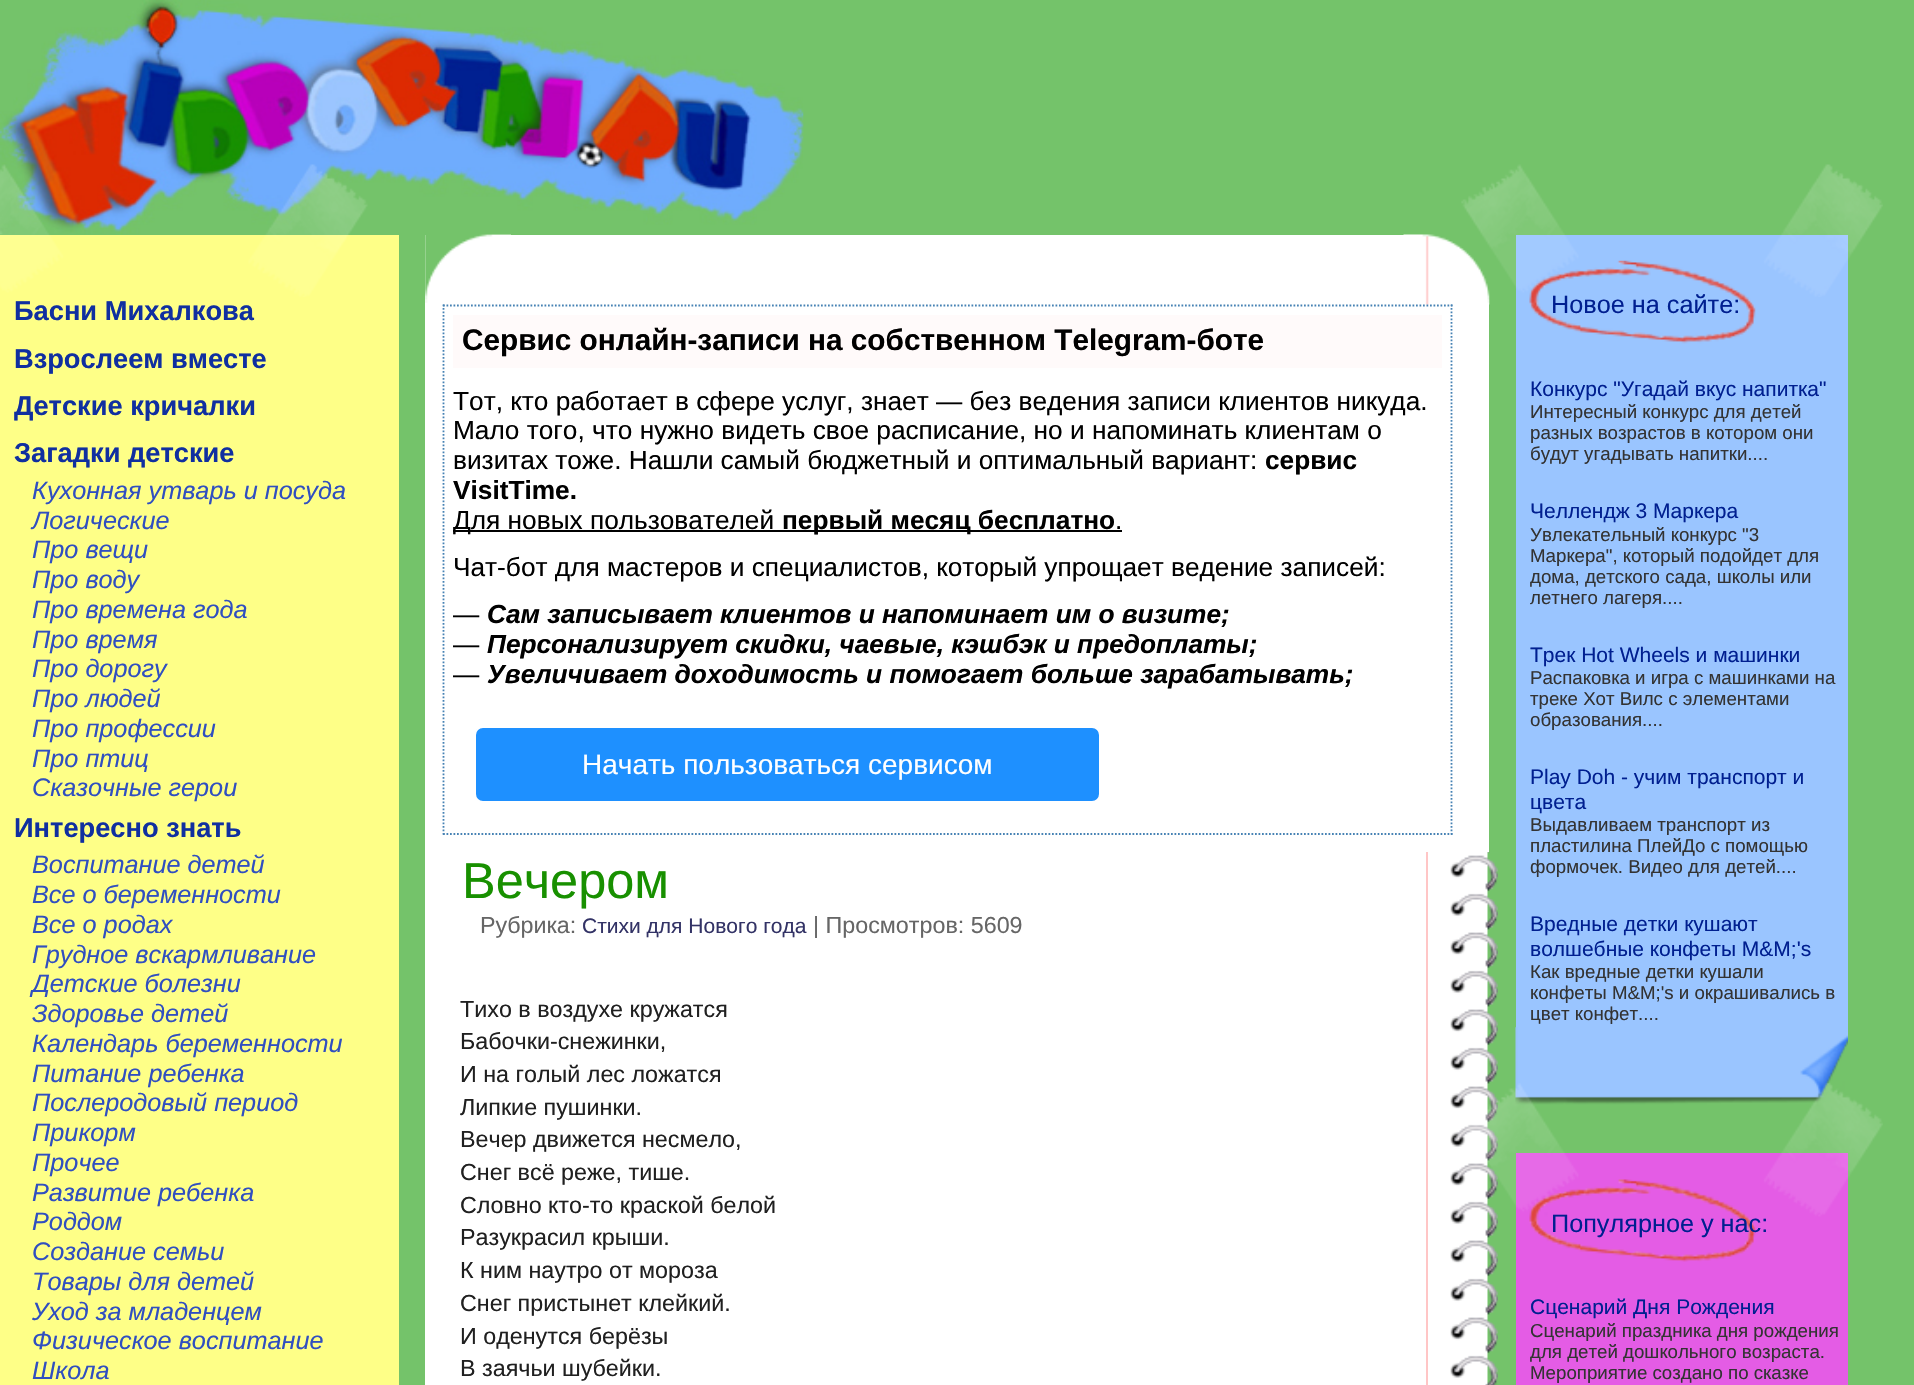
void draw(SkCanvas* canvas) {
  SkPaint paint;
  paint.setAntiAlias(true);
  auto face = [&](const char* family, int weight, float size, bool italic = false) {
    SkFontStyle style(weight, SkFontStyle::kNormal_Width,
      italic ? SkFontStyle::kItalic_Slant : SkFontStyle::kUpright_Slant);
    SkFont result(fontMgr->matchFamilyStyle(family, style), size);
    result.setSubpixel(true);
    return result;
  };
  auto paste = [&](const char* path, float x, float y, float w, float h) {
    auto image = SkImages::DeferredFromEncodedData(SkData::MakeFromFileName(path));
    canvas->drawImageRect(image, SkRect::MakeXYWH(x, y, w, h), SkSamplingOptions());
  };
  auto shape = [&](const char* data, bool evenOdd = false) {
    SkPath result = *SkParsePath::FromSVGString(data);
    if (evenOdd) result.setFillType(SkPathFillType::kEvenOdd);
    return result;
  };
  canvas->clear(0xff74c36a);
  paint.setColor(0xffffffff);
  canvas->drawRect(SkRect::MakeXYWH(425, 235, 1064, 1150), paint);
  paste("img/3.png", 425, 234, 86, 69);
  paste("img/1.png", 0, 0, 804, 235);
  paint.setColor(0xfffeff87);
  canvas->drawRect(SkRect::MakeXYWH(0, 235, 399, 1150), paint);
  paste("img/2.png", 0, 164, 368, 133);
  paste("img/4.png", 1403, 234, 87, 71);
  paint.setStroke(true);
  paint.setStrokeWidth(1.8f);
  paint.setColor(0xff4682b4);
  paint.setPathEffect(SkDashPathEffect::Make({{1.75f, 1.75f}}, 0));
  canvas->drawPath(shape("M443 305.5H1452.5"), paint);
  paint.setPathEffect(nullptr);
  paint.setPathEffect(SkDashPathEffect::Make({{1.75f, 1.75f}}, 0));
  canvas->drawPath(shape("M1451.5 304.5V835"), paint);
  paint.setPathEffect(nullptr);
  paint.setPathEffect(SkDashPathEffect::Make({{1.75f, 1.75f}}, 0));
  canvas->drawPath(shape("M443 834H1452.5"), paint);
  paint.setPathEffect(nullptr);
  paint.setPathEffect(SkDashPathEffect::Make({{1.75f, 1.75f}}, 0));
  canvas->drawPath(shape("M443.5 304.5V835"), paint);
  paint.setPathEffect(nullptr);
  paint.setStroke(false);
  paint.setColor(0xfffffafa);
  canvas->drawRect(SkRect::MakeXYWH(453, 315, 989, 53), paint);
  paint.setColor(0xff000000);
  canvas->drawRect(SkRect::MakeXYWH(453, 530, 669, 2), paint);
  paint.setColor(0xff1e90ff);
  canvas->drawRoundRect(SkRect::MakeXYWH(475, 727, 625, 75), 8, 8, paint);
  paint.setStroke(true);
  paint.setStrokeWidth(2);
  paint.setColor(0xffffffff);
  canvas->drawRoundRect(SkRect::MakeXYWH(475, 727, 625, 75), 8, 8, paint);
  paste("img/5.png", 1450, 852, 48, 533);
  paint.setStroke(false);
  paint.setColor(0xffffc6c6);
  canvas->drawRect(SkRect::MakeXYWH(1426, 852, 2, 533), paint);
  paint.setColor(0xff9ac5ff);
  canvas->drawRect(SkRect::MakeXYWH(1516, 235, 332, 793), paint);
  paste("img/6.png", 1515, 1027, 333, 78);
  paste("img/8.png", 1529, 260, 227, 84);
  paint.setColor(0xffe45ce5);
  canvas->drawRect(SkRect::MakeXYWH(1516, 1153, 332, 232), paint);
  paste("img/10.png", 1529, 1179, 227, 83);
  auto f0 = face("Liberation Sans", 700, 27.25f);
  paint.setColor(0xff102fa0);
  {
    const struct { const char* s; float x, y; } items[] = {
      {"Басни Михалкова", 14, 320},
      {"Взрослеем вместе", 14, 368},
      {"Детские кричалки", 14, 415},
      {"Загадки детские", 14, 462},
    };
    for (auto [s, x, y] : items) {
      canvas->drawString(s, x, y, f0, paint);
    }
  }
  auto f1 = face("Liberation Sans", 400, 25.25f, true);
  paint.setColor(0xff304fc0);
  {
    const struct { const char* s; float x, y; } items[] = {
      {"Кухонная утварь и посуда", 32, 499},
      {"Логические", 32, 529},
      {"Про вещи", 32, 558},
      {"Про воду", 32, 588},
      {"Про времена года", 32, 618},
      {"Про время", 32, 648},
      {"Про дорогу", 32, 677},
      {"Про людей", 32, 707},
      {"Про профессии", 32, 737},
      {"Про птиц", 32, 767},
      {"Сказочные герои", 32, 796},
    };
    for (auto [s, x, y] : items) {
      canvas->drawString(s, x, y, f1, paint);
    }
  }
  paint.setColor(0xff102fa0);
  canvas->drawString("Интересно знать", 14, 837, f0, paint);
  paint.setColor(0xff304fc0);
  {
    const struct { const char* s; float x, y; } items[] = {
      {"Воспитание детей", 32, 873},
      {"Все о беременности", 32, 903},
      {"Все о родах", 32, 933},
      {"Грудное вскармливание", 32, 963},
      {"Детские болезни", 32, 992},
      {"Здоровье детей", 32, 1022},
      {"Календарь беременности", 32, 1052},
      {"Питание ребенка", 32, 1082},
      {"Послеродовый период", 32, 1111},
      {"Прикорм", 32, 1141},
      {"Прочее", 32, 1171},
      {"Развитие ребенка", 32, 1201},
      {"Роддом", 32, 1230},
      {"Создание семьи", 32, 1260},
      {"Товары для детей", 32, 1290},
      {"Уход за младенцем", 32, 1320},
      {"Физическое воспитание", 32, 1349},
      {"Школа", 32, 1379},
    };
    for (auto [s, x, y] : items) {
      canvas->drawString(s, x, y, f1, paint);
    }
  }
  auto f2 = face("Liberation Sans", 700, 29.75f);
  paint.setColor(0xff000000);
  canvas->drawString("Сервис онлайн-записи на собственном Telegram-боте", 462, 350, f2, paint);
  auto f3 = face("Liberation Sans", 400, 26.25f);
  {
    const struct { const char* s; float x, y; } items[] = {
      {"Тот, кто работает в сфере услуг, знает — без ведения записи клиентов никуда.", 453, 410},
      {"Мало того, что нужно видеть свое расписание, но и напоминать клиентам о", 453, 439},
      {"визитах тоже. Нашли самый бюджетный и оптимальный вариант:", 453, 469},
    };
    for (auto [s, x, y] : items) {
      canvas->drawString(s, x, y, f3, paint);
    }
  }
  auto f4 = face("Liberation Sans", 700, 26.25f);
  canvas->drawString("сервис", 1265, 469, f4, paint);
  canvas->drawString("VisitTime.", 453, 499, f4, paint);
  canvas->drawString("Для новых пользователей", 453, 529, f3, paint);
  canvas->drawString("первый месяц бесплатно", 782, 529, f4, paint);
  {
    const struct { const char* s; float x, y; } items[] = {
      {".", 1115, 529},
      {"Чат-бот для мастеров и специалистов, который упрощает ведение записей:", 453, 576},
      {"—", 453, 623},
    };
    for (auto [s, x, y] : items) {
      canvas->drawString(s, x, y, f3, paint);
    }
  }
  auto f5 = face("Liberation Sans", 700, 26.25f, true);
  canvas->drawString("Сам записывает клиентов и напоминает им о визите;", 487, 623, f5, paint);
  canvas->drawString("—", 453, 653, f3, paint);
  canvas->drawString("Персонализирует скидки, чаевые, кэшбэк и предоплаты;", 487, 653, f5, paint);
  canvas->drawString("—", 453, 683, f3, paint);
  canvas->drawString("Увеличивает доходимость и помогает больше зарабатывать;", 487, 683, f5, paint);
  auto f6 = face("Liberation Sans", 400, 28);
  paint.setColor(0xffffffff);
  canvas->drawString("Начать пользоваться сервисом", 582, 774, f6, paint);
  auto f7 = face("Liberation Sans", 400, 50.5f);
  paint.setColor(0xff189000);
  canvas->drawString("Вечером", 462, 898, f7, paint);
  auto f8 = face("Liberation Sans", 400, 23.3f);
  paint.setColor(0xff666666);
  canvas->drawString("Рубрика:", 480, 933, f8, paint);
  auto f9 = face("Liberation Sans", 400, 21);
  paint.setColor(0xff333366);
  canvas->drawString("Стихи для Нового года", 582, 933, f9, paint);
  paint.setColor(0xff666666);
  canvas->drawString("| Просмотров: 5609", 813, 933, f8, paint);
  paint.setColor(0xff202020);
  {
    const struct { const char* s; float x, y; } items[] = {
      {"Тихо в воздухе кружатся", 460, 1017},
      {"Бабочки-снежинки,", 460, 1049},
      {"И на голый лес ложатся", 460, 1082},
      {"Липкие пушинки.", 460, 1115},
      {"Вечер движется несмело,", 460, 1147},
      {"Снег всё реже, тише.", 460, 1180},
      {"Словно кто-то краской белой", 460, 1213},
      {"Разукрасил крыши.", 460, 1245},
      {"К ним наутро от мороза", 460, 1278},
      {"Снег пристынет клейкий.", 460, 1311},
      {"И оденутся берёзы", 460, 1344},
      {"В заячьи шубейки.", 460, 1376},
    };
    for (auto [s, x, y] : items) {
      canvas->drawString(s, x, y, f8, paint);
    }
  }
  auto f10 = face("Liberation Sans", 400, 25.25f);
  paint.setColor(0xff001f90);
  canvas->drawString("Новое на сайте:", 1551, 313, f10, paint);
  paste("img/7.png", 1461, 164, 422, 133);
  canvas->drawString("Конкурс \"Угадай вкус напитка\"", 1530, 396, f9, paint);
  auto f11 = face("Liberation Sans", 400, 18.7f);
  paint.setColor(0xff333333);
  {
    const struct { const char* s; float x, y; } items[] = {
      {"Интересный конкурс для детей", 1530, 418},
      {"разных возрастов в котором они", 1530, 439},
      {"будут угадывать напитки....", 1530, 460},
    };
    for (auto [s, x, y] : items) {
      canvas->drawString(s, x, y, f11, paint);
    }
  }
  paint.setColor(0xff001f90);
  canvas->drawString("Челлендж 3 Маркера", 1530, 518, f9, paint);
  paint.setColor(0xff333333);
  {
    const struct { const char* s; float x, y; } items[] = {
      {"Увлекательный конкурс \"3", 1530, 541},
      {"Маркера\", который подойдет для", 1530, 562},
      {"дома, детского сада, школы или", 1530, 583},
      {"летнего лагеря....", 1530, 604},
    };
    for (auto [s, x, y] : items) {
      canvas->drawString(s, x, y, f11, paint);
    }
  }
  paint.setColor(0xff001f90);
  canvas->drawString("Трек Hot Wheels и машинки", 1530, 662, f9, paint);
  paint.setColor(0xff333333);
  {
    const struct { const char* s; float x, y; } items[] = {
      {"Распаковка и игра с машинками на", 1530, 684},
      {"треке Хот Вилс с элементами", 1530, 705},
      {"образования....", 1530, 726},
    };
    for (auto [s, x, y] : items) {
      canvas->drawString(s, x, y, f11, paint);
    }
  }
  paint.setColor(0xff001f90);
  canvas->drawString("Play Doh - учим транспорт и", 1530, 784, f9, paint);
  canvas->drawString("цвета", 1530, 809, f9, paint);
  paint.setColor(0xff333333);
  {
    const struct { const char* s; float x, y; } items[] = {
      {"Выдавливаем транспорт из", 1530, 831},
      {"пластилина ПлейДо с помощью", 1530, 852},
      {"формочек. Видео для детей....", 1530, 873},
    };
    for (auto [s, x, y] : items) {
      canvas->drawString(s, x, y, f11, paint);
    }
  }
  paint.setColor(0xff001f90);
  canvas->drawString("Вредные детки кушают", 1530, 931, f9, paint);
  canvas->drawString("волшебные конфеты M&M;'s", 1530, 956, f9, paint);
  paint.setColor(0xff333333);
  {
    const struct { const char* s; float x, y; } items[] = {
      {"Как вредные детки кушали", 1530, 978},
      {"конфеты M&M;'s и окрашивались в", 1530, 999},
      {"цвет конфет....", 1530, 1020},
    };
    for (auto [s, x, y] : items) {
      canvas->drawString(s, x, y, f11, paint);
    }
  }
  paint.setColor(0xff001f90);
  canvas->drawString("Популярное у нас:", 1551, 1232, f10, paint);
  paste("img/9.png", 1465, 1083, 418, 134);
  canvas->drawString("Сценарий Дня Рождения", 1530, 1314, f9, paint);
  paint.setColor(0xff333333);
  {
    const struct { const char* s; float x, y; } items[] = {
      {"Сценарий праздника дня рождения", 1530, 1337},
      {"для детей дошкольного возраста.", 1530, 1358},
      {"Мероприятие создано по сказке", 1530, 1379},
    };
    for (auto [s, x, y] : items) {
      canvas->drawString(s, x, y, f11, paint);
    }
  }
}
